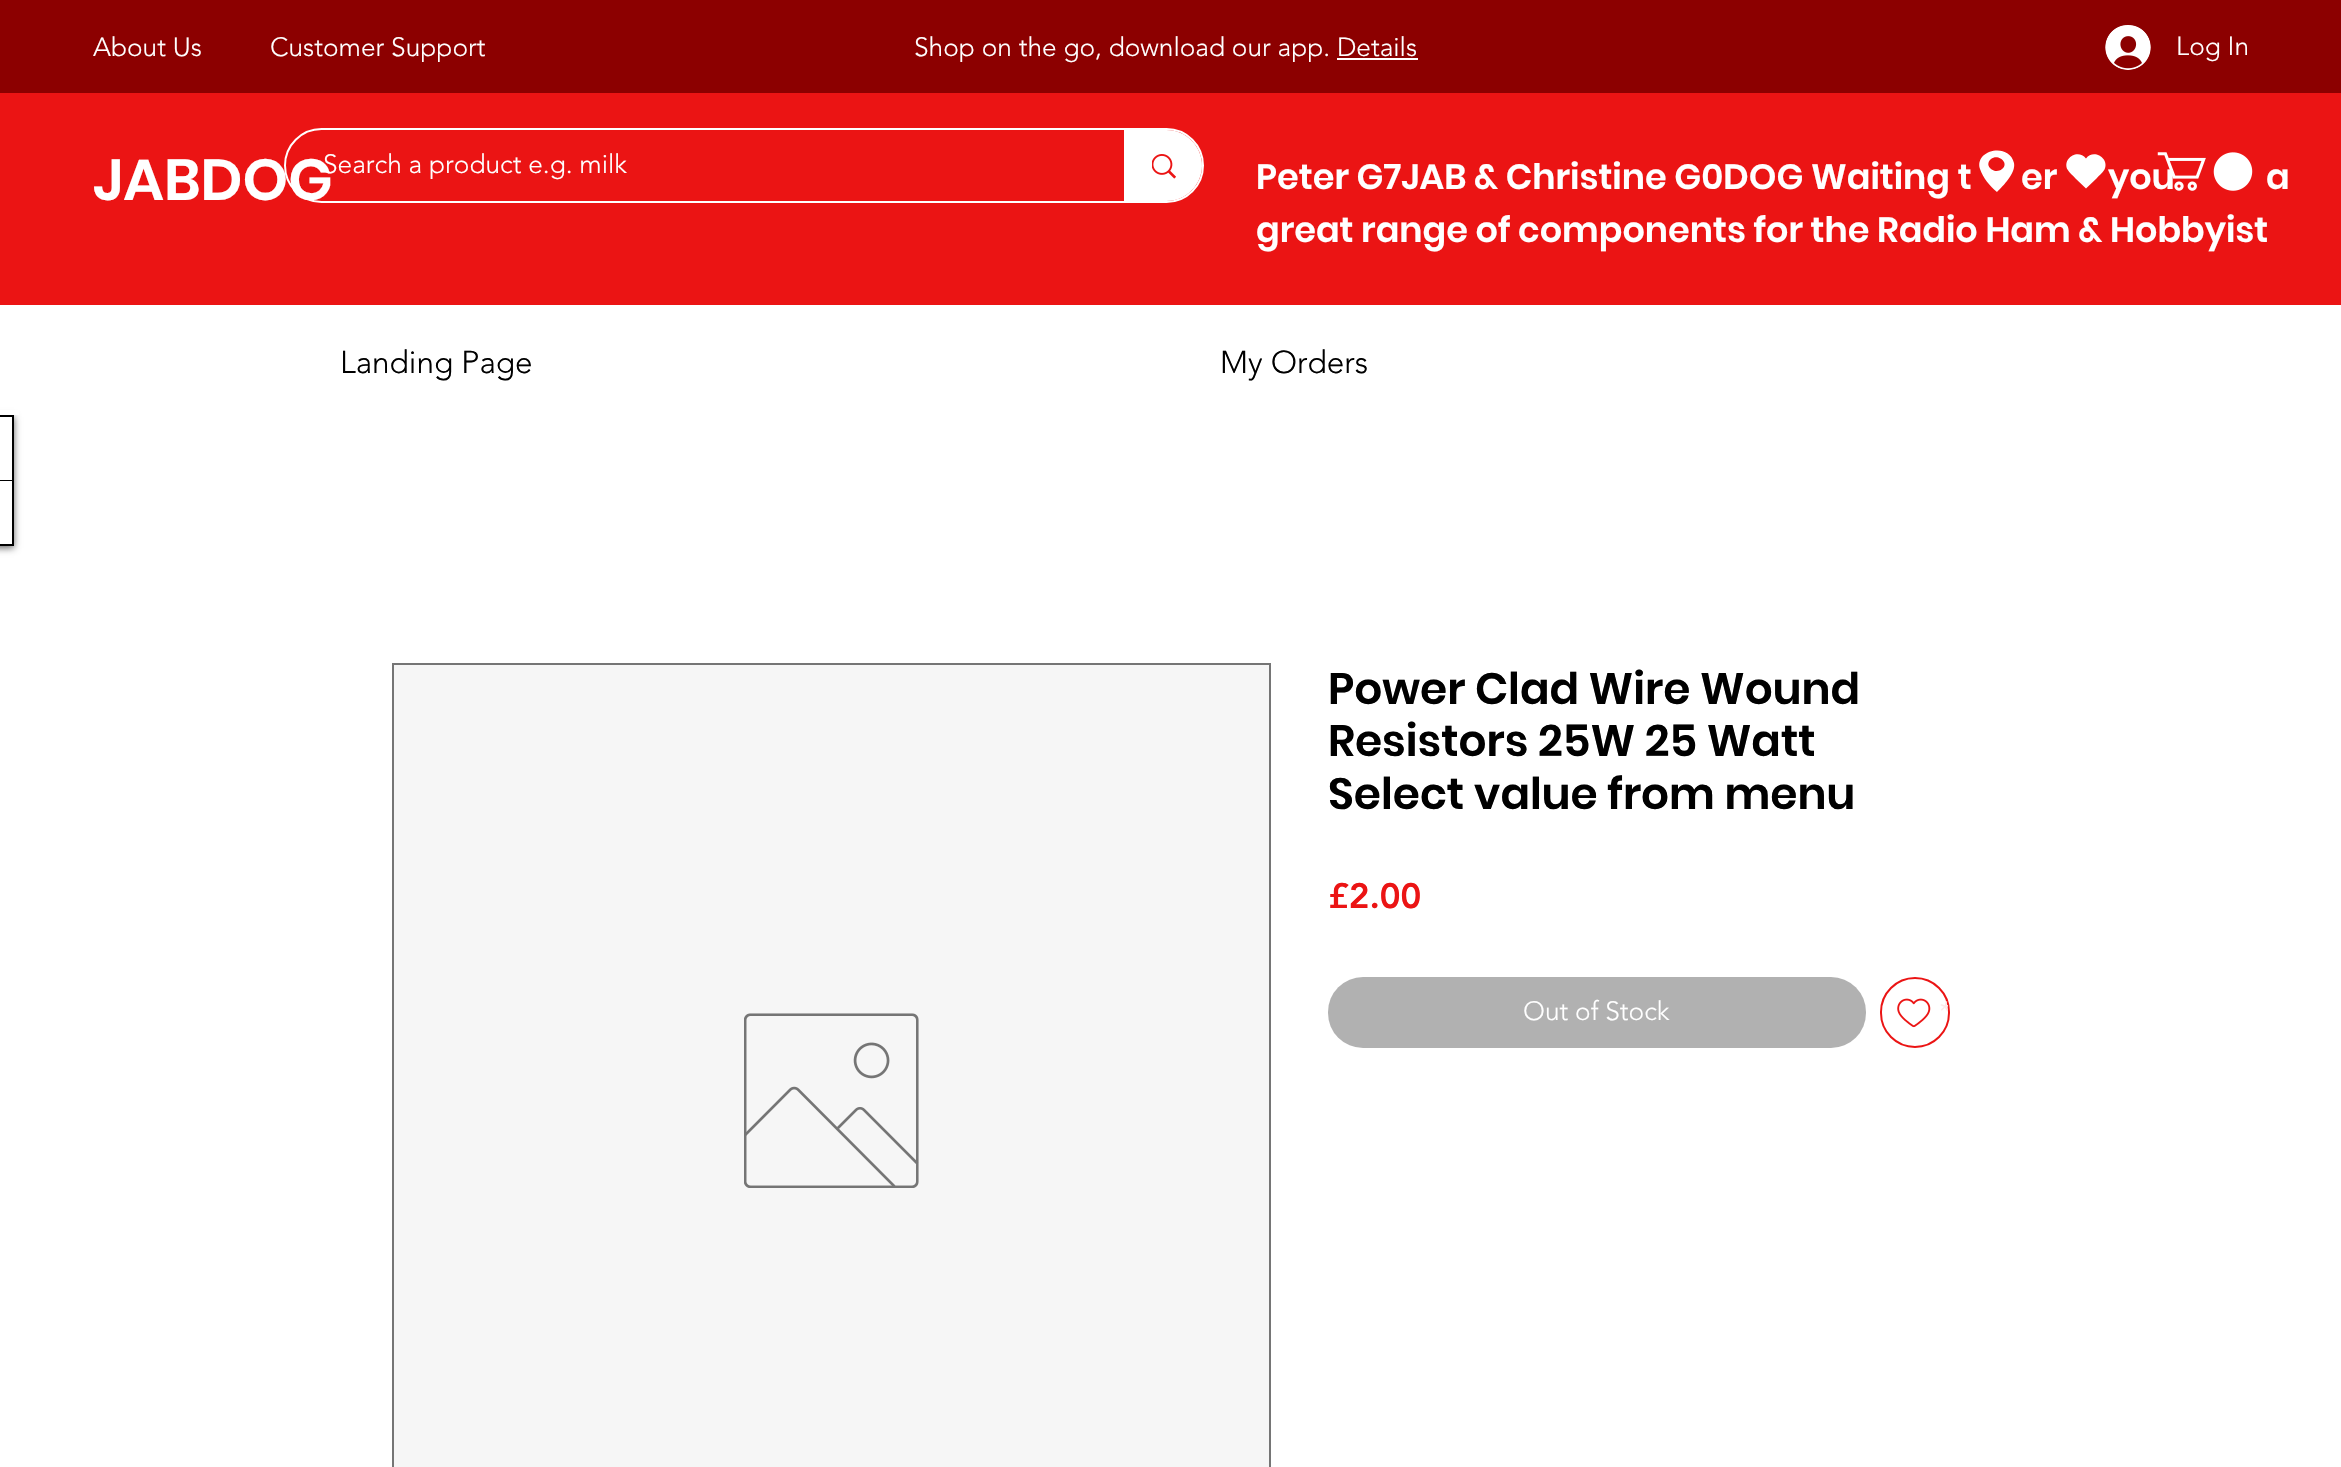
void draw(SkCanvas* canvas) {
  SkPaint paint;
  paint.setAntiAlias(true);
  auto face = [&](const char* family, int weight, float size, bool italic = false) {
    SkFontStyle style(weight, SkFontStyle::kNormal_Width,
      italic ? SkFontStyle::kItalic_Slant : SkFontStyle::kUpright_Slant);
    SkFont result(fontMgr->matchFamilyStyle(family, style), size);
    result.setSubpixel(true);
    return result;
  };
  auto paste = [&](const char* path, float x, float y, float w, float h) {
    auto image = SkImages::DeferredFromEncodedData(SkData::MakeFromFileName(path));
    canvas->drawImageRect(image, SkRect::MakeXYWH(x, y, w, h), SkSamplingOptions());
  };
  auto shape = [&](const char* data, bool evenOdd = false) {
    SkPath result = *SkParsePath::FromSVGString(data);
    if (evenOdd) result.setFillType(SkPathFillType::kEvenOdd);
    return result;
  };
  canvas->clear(0xffffffff);
  paint.setColor(0xff8c0000);
  canvas->drawRect(SkRect::MakeXYWH(0, 0, 2341, 93), paint);
  paint.setColor(0xffffffff);
  canvas->drawRect(SkRect::MakeXYWH(1337, 58, 81, 2), paint);
  paste("img/1.png", 2105, 25, 46, 45);
  paint.setColor(0xffeb1414);
  canvas->drawRect(SkRect::MakeXYWH(0, 93, 2341, 212), paint);
  paint.setColor(0xffffffff);
  canvas->drawPath(shape("M2014 163C2009 142 1974 150 1980 169C1983 178 1990 186 1997 192C2003 186 2016 173 2014 163ZM2002 169C1995 175 1983 166 1991 159C1998 153 2010 163 2002 169Z"), paint);
  canvas->drawPath(shape("M2086 188.5L2096.5 178.5C2099 175.5 2102.5 173 2104.5 169.5C2110 158.5 2093.5 148 2086 158.5C2078 148 2062 158.5 2067.5 169.5C2069.5 173 2073 175.5 2075.5 178.5Z"), paint);
  paint.setStroke(true);
  paint.setStrokeWidth(2);
  canvas->drawRoundRect(SkRect::MakeXYWH(285, 129, 918, 73), 36.5f, 36.5f, paint);
  paint.setStroke(false);
  canvas->drawPath(shape("M1124 130H1166.5C1186 130 1202 146 1202 165.5C1202 185 1186 201 1166.5 201H1124Z"), paint);
  paste("img/3.png", 1152, 154, 24, 25);
  canvas->save();
  canvas->clipPath(shape("M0 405H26V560H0ZM-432 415H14V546H-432Z", true), true);
  paint.setColor(0x99000000);
  paint.setMaskFilter(SkMaskFilter::MakeBlur(kNormal_SkBlurStyle, 3.5f));
  canvas->drawRect(SkRect::MakeXYWH(-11, 417, 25, 131), paint);
  paint.setMaskFilter(nullptr);
  canvas->restore();
  paint.setColor(0xffffffff);
  canvas->drawRect(SkRect::MakeXYWH(0, 410, 19, 5), paint);
  paint.setStroke(true);
  paint.setColor(0xff000000);
  canvas->drawRect(SkRect::MakeXYWH(-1, 416, 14, 129), paint);
  paint.setStroke(false);
  canvas->drawRect(SkRect::MakeXYWH(0, 480, 12, 1), paint);
  paint.setStroke(true);
  paint.setColor(0xff757575);
  canvas->drawRect(SkRect::MakeXYWH(393, 664, 877, 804), paint);
  paint.setStroke(false);
  paint.setColor(0xfff6f6f6);
  canvas->drawRect(SkRect::MakeXYWH(394, 665, 875, 802), paint);
  paste("img/4.png", 744, 1013, 175, 175);
  paint.setColor(0xffb1b1b1);
  canvas->drawRoundRect(SkRect::MakeXYWH(1328, 977, 538, 71), 35, 35, paint);
  paint.setStroke(true);
  paint.setColor(0xffeb1414);
  canvas->drawRoundRect(SkRect::MakeXYWH(1881, 978, 68, 69), 34, 34, paint);
  paste("img/5.png", 1897, 998, 34, 30);
  auto f0 = face("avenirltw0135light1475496", 300, 26.25f);
  paint.setStroke(false);
  paint.setColor(0xffffffff);
  {
    const struct { const char* s; float x, y; } items[] = {
      {"About Us", 93, 56},
      {"Customer Support", 270, 56},
      {"Shop on the go, download our app. Details", 914, 56},
      {"Log In", 2176, 55},
    };
    for (auto [s, x, y] : items) {
      canvas->drawString(s, x, y, f0, paint);
    }
  }
  auto f1 = face("Poppins", 600, 57.75f);
  canvas->drawString("JABDOG", 93, 200, f1, paint);
  canvas->drawString("Search a product e.g. milk", 323, 173, f0, paint);
  auto f2 = face("Poppins", 600, 35);
  {
    const struct { const char* s; float x, y; } items[] = {
      {"Peter G7JAB & Christine G0DOG Waiting t", 1256, 189},
      {"er", 2021, 189},
      {"you", 2108, 189},
    };
    for (auto [s, x, y] : items) {
      canvas->drawString(s, x, y, f2, paint);
    }
  }
  paste("img/2.png", 2157, 152, 96, 39);
  canvas->drawString("a", 2266, 189, f2, paint);
  canvas->drawString("great range of components for the Radio Ham & Hobbyist", 1256, 242, f2, paint);
  auto f3 = face("avenirltw0135light1475496", 300, 31.5f);
  paint.setColor(0xff000000);
  canvas->drawString("Landing Page", 340, 373, f3, paint);
  canvas->drawString("My Orders", 1220, 373, f3, paint);
  auto f4 = face("Poppins", 600, 43.75f);
  {
    const struct { const char* s; float x, y; } items[] = {
      {"Power Clad Wire Wound", 1328, 704},
      {"Resistors 25W 25 Watt", 1328, 756},
      {"Select value from menu", 1328, 809},
    };
    for (auto [s, x, y] : items) {
      canvas->drawString(s, x, y, f4, paint);
    }
  }
  auto f5 = face("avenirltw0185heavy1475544", 900, 35);
  paint.setColor(0xffeb1414);
  canvas->drawString("£2.00", 1328, 908, f5, paint);
  paint.setColor(0xffffffff);
  canvas->drawString("Out of Stock", 1523, 1020, f0, paint);
  canvas->save();
  canvas->clipRect(SkRect::MakeXYWH(1881, 984, 67, 56));
  auto f6 = face("avenirltw0135light1475496", 300, 26.25f, true);
  paint.setColor(0xfffde7e7);
  canvas->drawString("*", 1936, 1020, f6, paint);
  canvas->restore();
}
